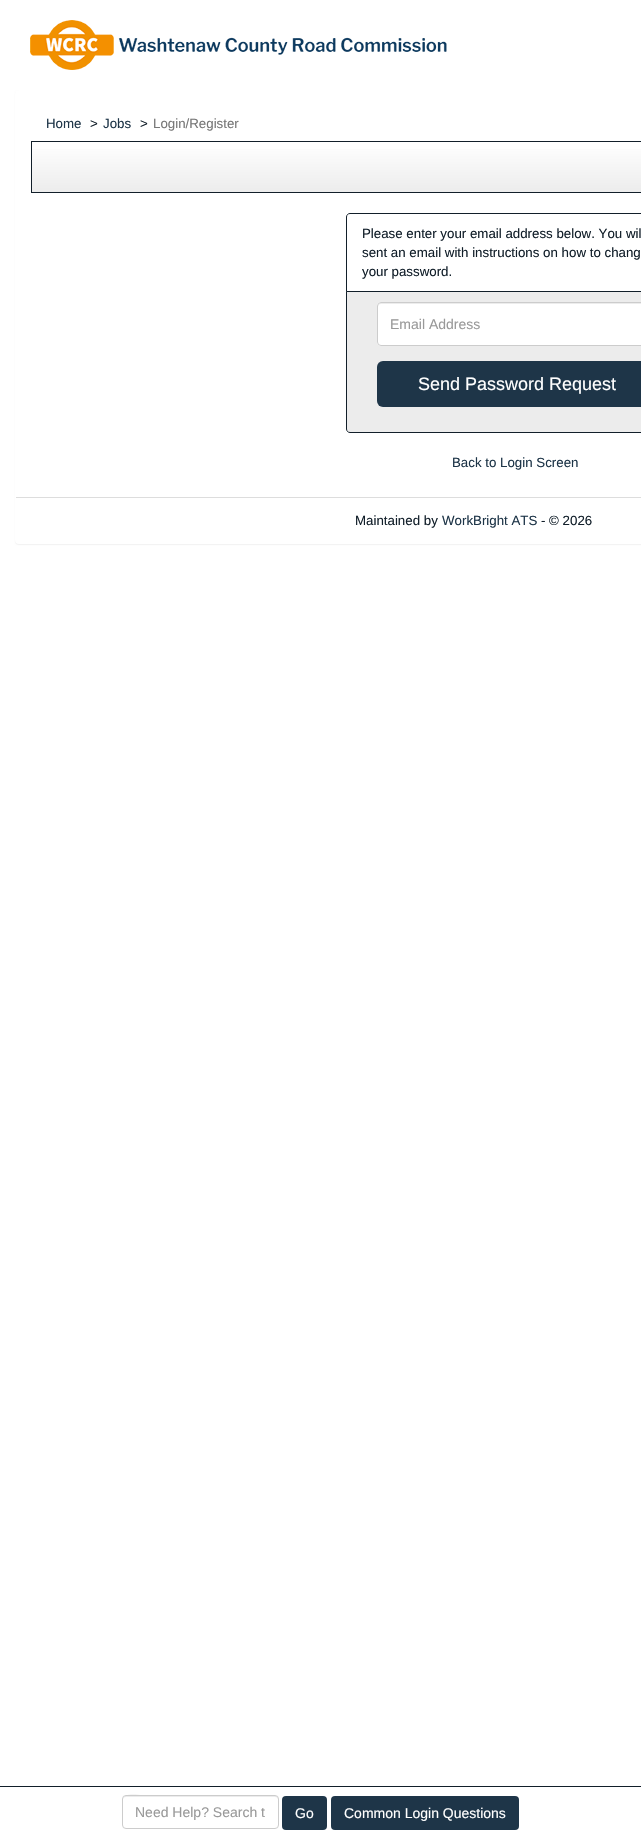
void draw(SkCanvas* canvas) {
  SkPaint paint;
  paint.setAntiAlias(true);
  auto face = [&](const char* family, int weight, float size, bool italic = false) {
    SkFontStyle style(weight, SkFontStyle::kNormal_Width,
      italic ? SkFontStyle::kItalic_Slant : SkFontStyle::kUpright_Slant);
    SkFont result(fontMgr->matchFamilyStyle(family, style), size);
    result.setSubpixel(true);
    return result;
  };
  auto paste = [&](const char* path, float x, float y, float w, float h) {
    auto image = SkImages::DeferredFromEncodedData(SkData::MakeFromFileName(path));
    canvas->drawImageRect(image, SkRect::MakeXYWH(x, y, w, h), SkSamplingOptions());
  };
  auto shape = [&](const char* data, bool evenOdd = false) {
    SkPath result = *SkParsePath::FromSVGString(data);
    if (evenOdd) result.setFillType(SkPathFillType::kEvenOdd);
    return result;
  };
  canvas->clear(0xffffffff);
  paste("img/1.png", 30, 20, 417, 50);
  paint.setColor(0x0d000000);
  paint.setMaskFilter(SkMaskFilter::MakeBlur(kNormal_SkBlurStyle, 0.5f));
  canvas->drawRoundRect(SkRect::MakeXYWH(15, 91, 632, 454), 4, 4, paint);
  paint.setMaskFilter(nullptr);
  paint.setColor(0xffffffff);
  canvas->drawRoundRect(SkRect::MakeXYWH(15, 90, 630, 454), 4, 4, paint);
  {
    const SkColor colors[] = {0xffffffff, 0xffececec};
    const float stops[] = {0, 1};
    const SkPoint ends[] = {{515, 142}, {515, 192}};
    paint.setShader(SkGradientShader::MakeLinear(ends, colors, stops, 2, SkTileMode::kClamp));
    paint.setAlpha(255);
  }
  canvas->drawRect(SkRect::MakeXYWH(32, 149, 609, 43), paint);
  paint.setStroke(true);
  paint.setStrokeWidth(1);
  paint.setShader(nullptr);
  paint.setColor(0xff121f2a);
  canvas->drawRect(SkRect::MakeXYWH(31.5f, 141.5f, 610, 51), paint);
  canvas->drawPath(shape("M350 213.5H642C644 213.5 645.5 215 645.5 217V291.5H346.5V217C346.5 215 348 213.5 350 213.5Z"), paint);
  paint.setStroke(false);
  paint.setColor(0xffececec);
  canvas->drawPath(shape("M346.5 291.5H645.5V429C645.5 431 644 432.5 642 432.5H350C348 432.5 346.5 431 346.5 429Z"), paint);
  paint.setStroke(true);
  paint.setColor(0xff121f2a);
  canvas->drawPath(shape("M346.5 291.5H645.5V429C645.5 431 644 432.5 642 432.5H350C348 432.5 346.5 431 346.5 429Z"), paint);
  paint.setStroke(false);
  paint.setColor(0xffffffff);
  canvas->drawRoundRect(SkRect::MakeXYWH(377, 302, 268, 44), 4, 4, paint);
  paint.setColor(0xffececec);
  canvas->drawPath(shape("M381 304H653C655 304 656 305 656 307V306C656 304 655 303 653 303H381C379 303 378 304 378 306V307C378 305 379 304 381 304Z"), paint);
  paint.setStroke(true);
  paint.setColor(0xffcccccc);
  canvas->drawRoundRect(SkRect::MakeXYWH(377.5f, 302.5f, 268, 43), 3.5f, 3.5f, paint);
  paint.setStroke(false);
  paint.setColor(0xff1e3548);
  canvas->drawRoundRect(SkRect::MakeXYWH(377, 361, 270, 46), 6, 6, paint);
  paint.setColor(0xffdddddd);
  canvas->drawRect(SkRect::MakeXYWH(16, 497, 625, 1), paint);
  paint.setColor(0xff121f2a);
  canvas->drawRect(SkRect::MakeXYWH(0, 1786, 641, 1), paint);
  paint.setColor(0xffececec);
  canvas->drawPath(shape("M126 1797H275C277 1797 278 1798 278 1800C278 1798 278 1797 276 1796H151C143 1796 123 1791 123 1800C123 1798 124 1797 126 1797Z"), paint);
  paint.setStroke(true);
  paint.setColor(0xffcccccc);
  canvas->drawRoundRect(SkRect::MakeXYWH(122.5f, 1795.5f, 156, 33), 3.5f, 3.5f, paint);
  paint.setStroke(false);
  paint.setColor(0xff1e3548);
  canvas->drawRoundRect(SkRect::MakeXYWH(282, 1796, 45, 34), 4, 4, paint);
  canvas->drawRoundRect(SkRect::MakeXYWH(331, 1796, 188, 34), 4, 4, paint);
  auto f0 = face("Liberation Sans", 400, 13.3f);
  canvas->drawString("Home", 46, 128, f0, paint);
  paint.setColor(0xff121f2a);
  canvas->drawString(">", 90, 128, f0, paint);
  paint.setColor(0xff1e3548);
  canvas->drawString("Jobs", 103, 128, f0, paint);
  paint.setColor(0xff121f2a);
  canvas->drawString(">", 140, 128, f0, paint);
  paint.setColor(0xff777777);
  canvas->drawString("Login/Register", 153, 128, f0, paint);
  paint.setColor(0xff121f2a);
  {
    const struct { const char* s; float x, y; } items[] = {
      {"Please enter your email address below. You wil", 362, 238},
      {"sent an email with instructions on how to chang", 362, 257},
      {"your password.", 362, 276},
    };
    for (auto [s, x, y] : items) {
      canvas->drawString(s, x, y, f0, paint);
    }
  }
  auto f1 = face("Liberation Sans", 400, 14);
  paint.setColor(0xff999999);
  canvas->drawString("Email Address", 390, 329, f1, paint);
  auto f2 = face("Liberation Sans", 400, 18);
  paint.setColor(0xffffffff);
  canvas->drawString("Send Password Request", 418, 390, f2, paint);
  paint.setColor(0xff1e3548);
  canvas->drawString("Back to Login Screen", 452, 467, f0, paint);
  paint.setColor(0xff121f2a);
  canvas->drawString("Maintained by", 355, 525, f0, paint);
  paint.setColor(0xff1e3548);
  canvas->drawString("WorkBright ATS", 442, 525, f0, paint);
  paint.setColor(0xff121f2a);
  canvas->drawString("- © 2026", 541, 525, f0, paint);
  paint.setColor(0xff999999);
  canvas->drawString("Need Help? Search t", 135, 1817, f1, paint);
  paint.setColor(0xffffffff);
  canvas->drawString("Go", 295, 1818, f1, paint);
  canvas->drawString("Common Login Questions", 344, 1818, f1, paint);
}
